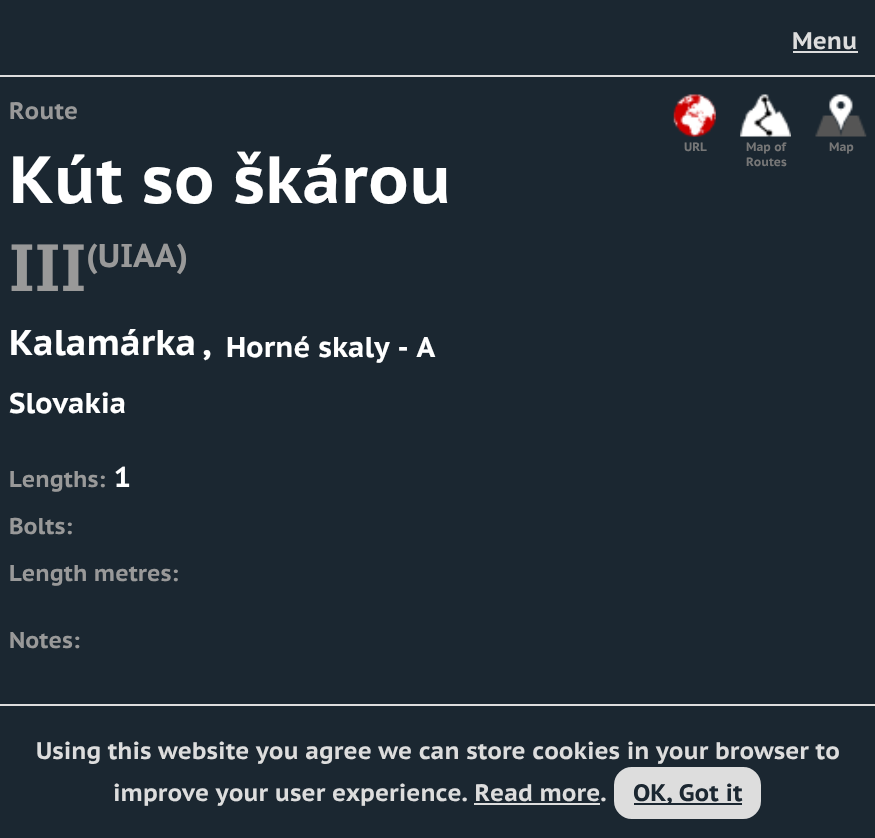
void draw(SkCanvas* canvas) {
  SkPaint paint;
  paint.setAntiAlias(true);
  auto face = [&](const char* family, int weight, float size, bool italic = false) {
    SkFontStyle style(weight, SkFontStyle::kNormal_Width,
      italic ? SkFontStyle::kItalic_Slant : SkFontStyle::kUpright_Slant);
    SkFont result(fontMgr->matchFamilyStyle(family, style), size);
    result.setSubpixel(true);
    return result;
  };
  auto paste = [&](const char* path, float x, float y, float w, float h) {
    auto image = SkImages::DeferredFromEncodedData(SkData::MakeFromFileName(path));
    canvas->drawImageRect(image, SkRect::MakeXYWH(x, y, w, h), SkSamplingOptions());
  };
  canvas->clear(0xff1b2731);
  paint.setColor(0xffdddddd);
  canvas->drawRect(SkRect::MakeXYWH(0, 75, 875, 2), paint);
  canvas->drawRect(SkRect::MakeXYWH(793, 51, 65, 2), paint);
  paste("img/1.png", 673, 94, 43, 43);
  paste("img/2.png", 740, 94, 51, 43);
  paste("img/3.png", 815, 94, 52, 43);
  canvas->drawRect(SkRect::MakeXYWH(0, 704, 875, 2), paint);
  canvas->drawRoundRect(SkRect::MakeXYWH(615, 768, 145, 50), 17, 17, paint);
  paint.setStroke(true);
  paint.setStrokeWidth(2);
  canvas->drawRoundRect(SkRect::MakeXYWH(615, 768, 145, 50), 17, 17, paint);
  paint.setStroke(false);
  paint.setColor(0xff1b2731);
  canvas->drawRect(SkRect::MakeXYWH(634, 803, 108, 2), paint);
  paint.setColor(0xffdddddd);
  canvas->drawRect(SkRect::MakeXYWH(474, 803, 126, 2), paint);
  auto f0 = face("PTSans", 700, 23.8f);
  canvas->drawString("Menu", 792, 49, f0, paint);
  paint.setColor(0xff999999);
  canvas->drawString("Route", 9, 119, f0, paint);
  auto f1 = face("PTSans", 700, 66.5f);
  paint.setColor(0xffffffff);
  canvas->drawString("Kút so škárou", 9, 203, f1, paint);
  paint.setColor(0xff999999);
  canvas->drawString("III", 9, 291, f1, paint);
  auto f2 = face("PTSans", 700, 33);
  canvas->drawString("(UIAA)", 86, 267, f2, paint);
  auto f3 = face("PTSans", 700, 35.75f);
  paint.setColor(0xffffffff);
  canvas->drawString("Kalamárka", 9, 355, f3, paint);
  canvas->drawString(",", 202, 355, f3, paint);
  auto f4 = face("PTSans", 700, 28.5f);
  canvas->drawString("Horné skaly - A", 226, 357, f4, paint);
  canvas->drawString("Slovakia", 9, 413, f4, paint);
  auto f5 = face("PTSans", 700, 22.75f);
  paint.setColor(0xff999999);
  canvas->drawString("Lengths:", 9, 487, f5, paint);
  paint.setColor(0xffffffff);
  canvas->drawString("1", 114, 487, f4, paint);
  paint.setColor(0xff999999);
  {
    const struct { const char* s; float x, y; } items[] = {
      {"Bolts:", 9, 534},
      {"Length metres:", 9, 581},
      {"Notes:", 9, 648},
    };
    for (auto [s, x, y] : items) {
      canvas->drawString(s, x, y, f5, paint);
    }
  }
  auto f6 = face("PTSans", 700, 12);
  paint.setColor(0xff777777);
  {
    const struct { const char* s; float x, y; } items[] = {
      {"URL", 684, 151},
      {"Map of", 746, 151},
      {"Routes", 746, 166},
      {"Map", 829, 151},
    };
    for (auto [s, x, y] : items) {
      canvas->drawString(s, x, y, f6, paint);
    }
  }
  paint.setColor(0xffdddddd);
  canvas->drawString("Using this website you agree we can store cookies in your browser to", 36, 759, f0, paint);
  canvas->drawString("improve your user experience. Read more.", 113, 801, f0, paint);
  paint.setColor(0xff1b2731);
  canvas->drawString("OK, Got it", 633, 801, f0, paint);
}
